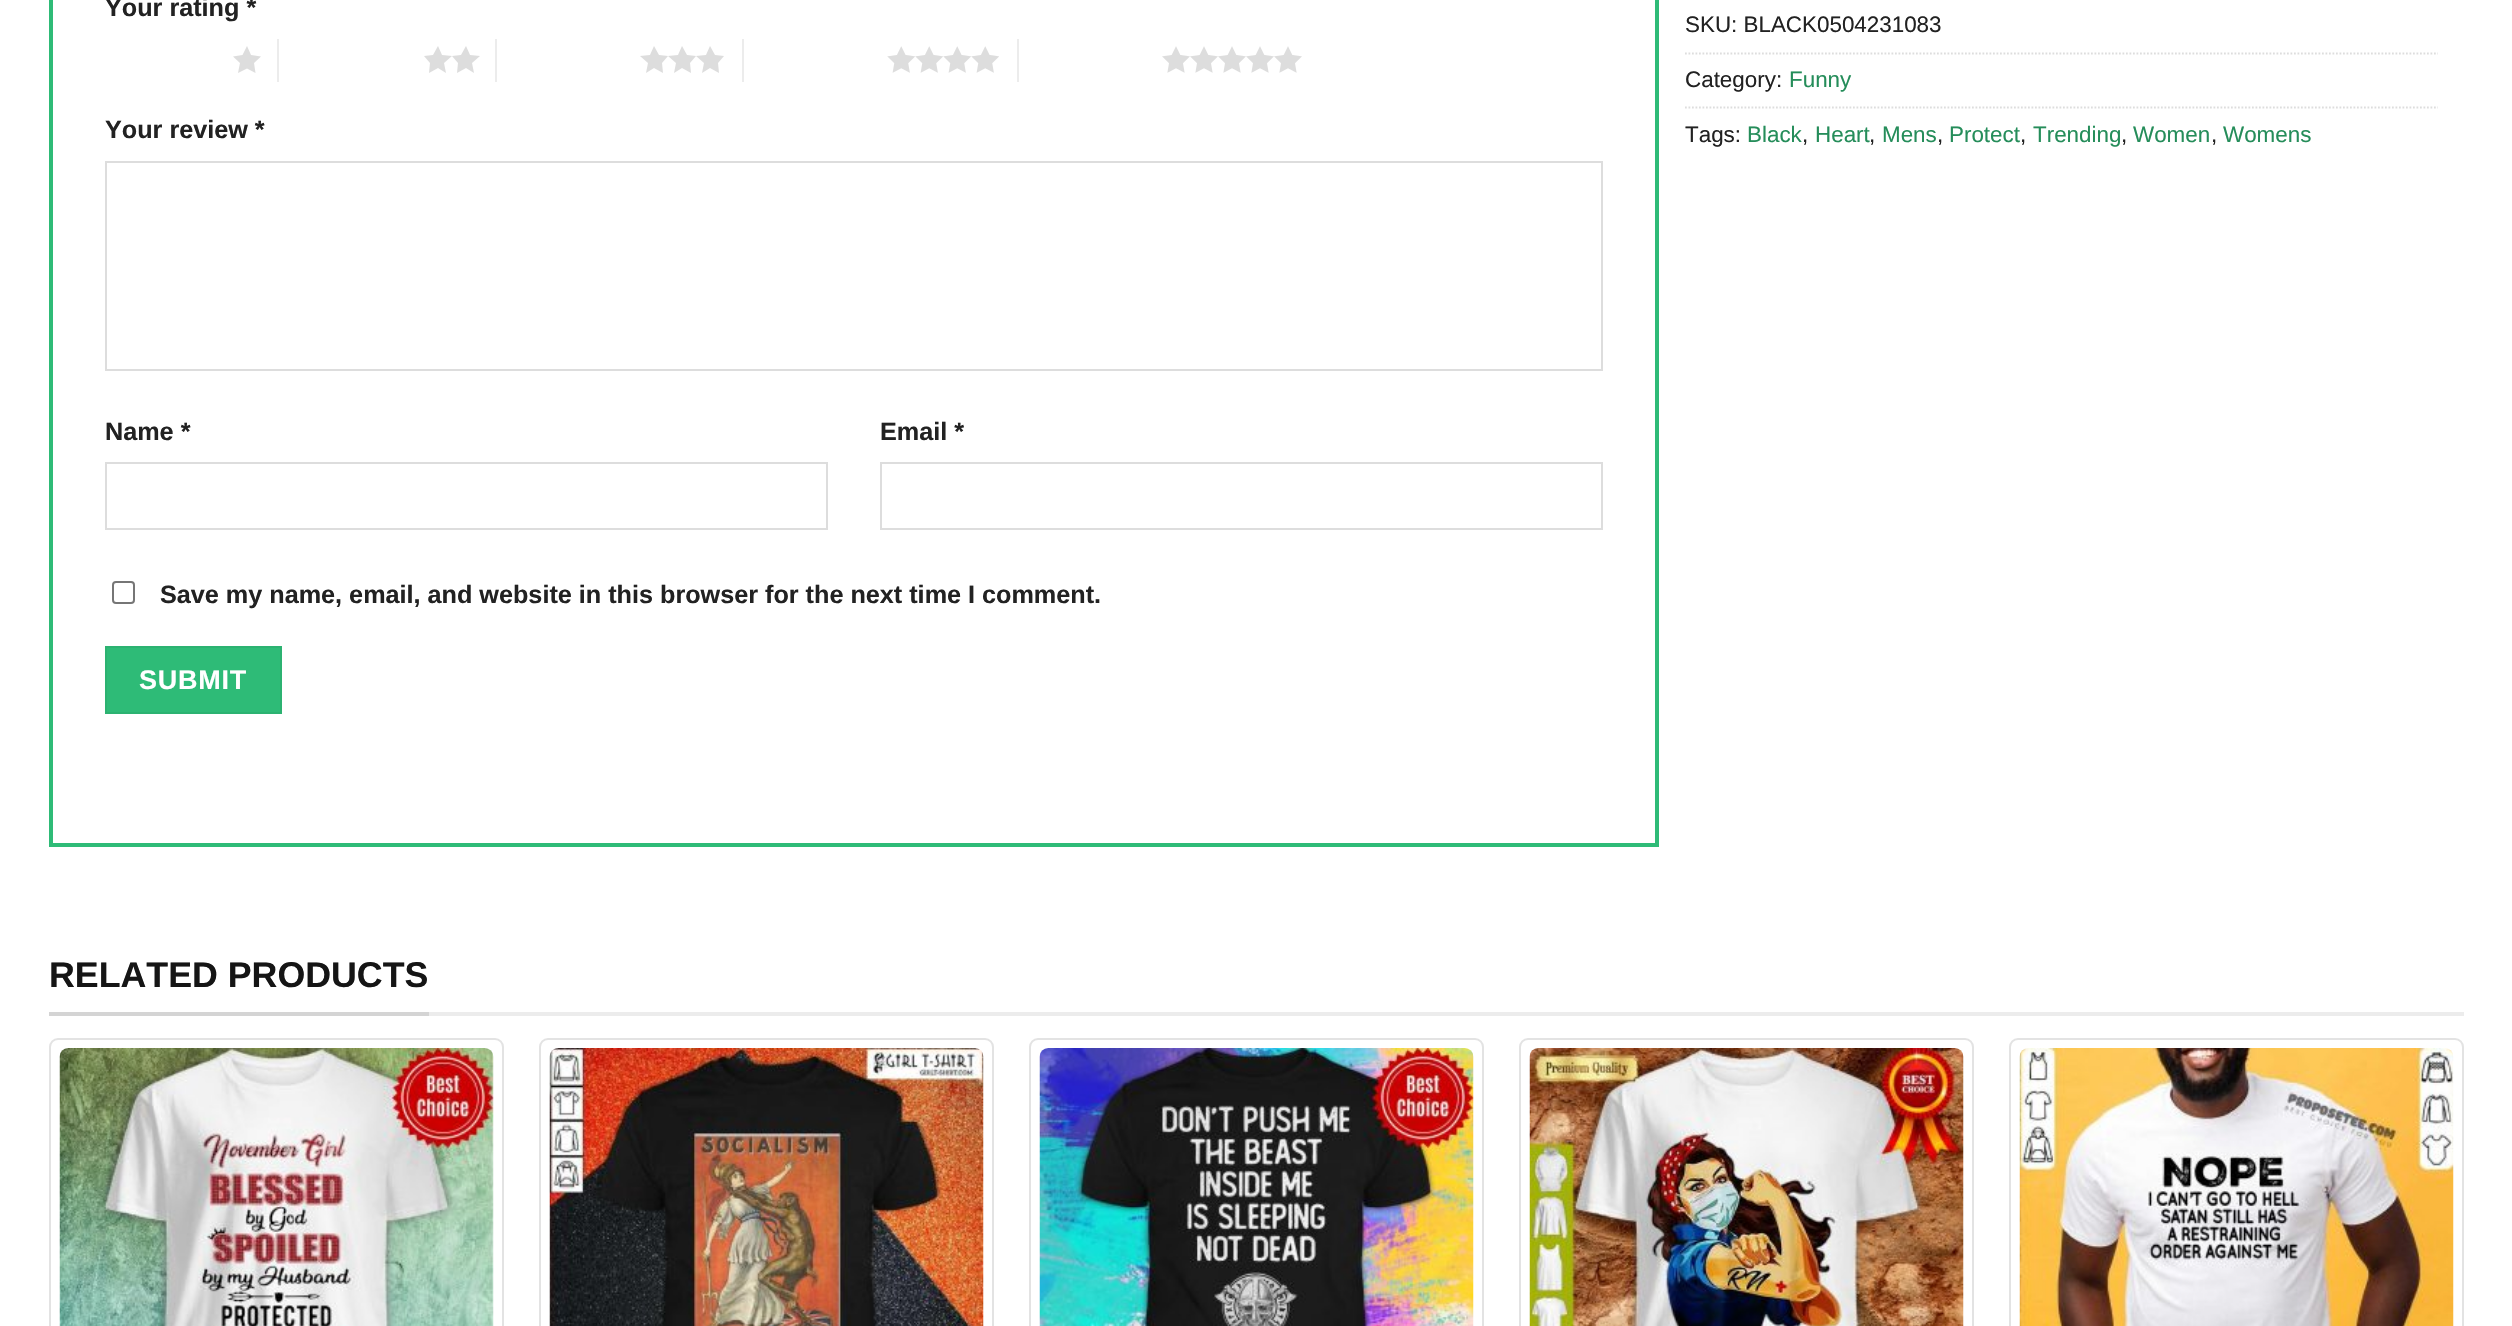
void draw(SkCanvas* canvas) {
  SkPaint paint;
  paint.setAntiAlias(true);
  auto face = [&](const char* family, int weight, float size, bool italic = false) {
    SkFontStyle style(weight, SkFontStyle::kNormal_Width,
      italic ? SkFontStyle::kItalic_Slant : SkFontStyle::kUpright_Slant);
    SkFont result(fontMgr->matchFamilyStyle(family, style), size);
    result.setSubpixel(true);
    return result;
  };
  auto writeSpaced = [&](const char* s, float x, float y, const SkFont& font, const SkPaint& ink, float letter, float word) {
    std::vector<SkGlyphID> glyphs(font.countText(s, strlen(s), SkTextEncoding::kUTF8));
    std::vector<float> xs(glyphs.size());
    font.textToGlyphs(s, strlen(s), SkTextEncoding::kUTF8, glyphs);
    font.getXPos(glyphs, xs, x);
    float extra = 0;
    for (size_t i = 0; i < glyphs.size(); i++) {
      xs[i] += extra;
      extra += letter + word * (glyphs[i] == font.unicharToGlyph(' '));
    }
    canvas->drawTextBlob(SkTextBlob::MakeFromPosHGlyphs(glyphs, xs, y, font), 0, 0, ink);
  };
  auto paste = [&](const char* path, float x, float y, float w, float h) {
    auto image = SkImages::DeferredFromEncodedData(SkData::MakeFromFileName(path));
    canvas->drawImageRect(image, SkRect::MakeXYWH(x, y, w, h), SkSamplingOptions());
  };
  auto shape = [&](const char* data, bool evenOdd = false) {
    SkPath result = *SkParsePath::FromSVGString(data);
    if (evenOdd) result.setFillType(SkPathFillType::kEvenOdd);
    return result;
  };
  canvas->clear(0xffffffff);
  paint.setStroke(true);
  paint.setStrokeWidth(4);
  paint.setColor(0xff2ebb77);
  canvas->drawRect(SkRect::MakeXYWH(51, -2, 1606, 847), paint);
  paint.setStroke(false);
  paint.setColor(0xffdddddd);
  canvas->drawPath(shape("M261 56.5L251 55L247 46L242.5 55L233 56.5L240 63L238 73L247 68.5L255.5 73L254 63Z"), paint);
  paint.setColor(0xffececec);
  canvas->drawRect(SkRect::MakeXYWH(277, 39, 2, 43), paint);
  paint.setColor(0xffdddddd);
  canvas->drawPath(shape("M452 56L442 55L438 46L433 55L424 56L430 63L429 73L438 68L446 73L444 63ZM480 56L470 55L466 46L461 55L452 56L458 63L457 73L466 68L474 73L472 63Z"), paint);
  paint.setColor(0xffececec);
  canvas->drawRect(SkRect::MakeXYWH(495, 39, 2, 43), paint);
  paint.setColor(0xffdddddd);
  canvas->drawPath(shape("M668 56L659 55L654 46L650 55L640 56L648 63L646 73L654 68L663 73L662 63ZM696 56L687 55L682 46L678 55L668 56L676 63L674 73L682 68L691 73L690 63ZM724 56L715 55L710 46L706 55L696 56L704 63L702 73L710 68L719 73L718 63Z"), paint);
  paint.setColor(0xffececec);
  canvas->drawRect(SkRect::MakeXYWH(742, 39, 2, 43), paint);
  paste("img/1.png", 887, 46, 112, 27);
  canvas->drawRect(SkRect::MakeXYWH(1017, 39, 2, 43), paint);
  paste("img/2.png", 1162, 46, 140, 27);
  paint.setStroke(true);
  paint.setStrokeWidth(2);
  paint.setColor(0xffdddddd);
  canvas->drawRect(SkRect::MakeXYWH(106, 162, 1496, 208), paint);
  canvas->drawRect(SkRect::MakeXYWH(106, 463, 721, 66), paint);
  canvas->drawRect(SkRect::MakeXYWH(881, 463, 721, 66), paint);
  paint.setColor(0xff767676);
  canvas->drawRoundRect(SkRect::MakeXYWH(113, 582, 21, 21), 3, 3, paint);
  paint.setStroke(false);
  paint.setColor(0xff2ebb77);
  canvas->drawRect(SkRect::MakeXYWH(106, 647, 175, 66), paint);
  paint.setStroke(true);
  paint.setColor(0xff2cb271);
  canvas->drawRect(SkRect::MakeXYWH(106, 647, 175, 66), paint);
  paint.setStrokeWidth(1.8f);
  paint.setColor(0xffdddddd);
  paint.setPathEffect(SkDashPathEffect::Make({{1.75f, 1.75f}}, 0));
  canvas->drawPath(shape("M1685 53.5H2438"), paint);
  paint.setPathEffect(nullptr);
  paint.setPathEffect(SkDashPathEffect::Make({{1.75f, 1.75f}}, 0));
  canvas->drawPath(shape("M1685 107.5H2438"), paint);
  paint.setPathEffect(nullptr);
  paint.setStroke(false);
  paint.setColor(0xffececec);
  canvas->drawRect(SkRect::MakeXYWH(429, 1012, 2035, 4), paint);
  paint.setColor(0xffd4d4d4);
  canvas->drawRect(SkRect::MakeXYWH(49, 1012, 380, 4), paint);
  paint.setStroke(true);
  paint.setStrokeWidth(2);
  paint.setColor(0xffe3e3e3);
  canvas->drawRoundRect(SkRect::MakeXYWH(50, 1039, 453, 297), 8, 8, paint);
  paste("img/3.png", 59, 1048, 435, 278);
  canvas->drawRoundRect(SkRect::MakeXYWH(540, 1039, 453, 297), 8, 8, paint);
  paste("img/4.png", 549, 1048, 435, 278);
  canvas->drawRoundRect(SkRect::MakeXYWH(1030, 1039, 453, 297), 8, 8, paint);
  paste("img/5.png", 1039, 1048, 435, 278);
  canvas->drawRoundRect(SkRect::MakeXYWH(1520, 1039, 453, 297), 8, 8, paint);
  paste("img/6.png", 1529, 1048, 435, 278);
  canvas->drawRoundRect(SkRect::MakeXYWH(2010, 1039, 453, 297), 8, 8, paint);
  paste("img/7.png", 2019, 1048, 435, 278);
  auto f0 = face("Liberation Sans", 700, 25.2f);
  paint.setStroke(false);
  paint.setColor(0xff222222);
  {
    const struct { const char* s; float x, y; } items[] = {
      {"Your rating *", 105, 16},
      {"Your review *", 105, 138},
      {"Name *", 105, 440},
      {"Email *", 880, 440},
      {"Save my name, email, and website in this browser for the next time I comment.", 160, 603},
    };
    for (auto [s, x, y] : items) {
      canvas->drawString(s, x, y, f0, paint);
    }
  }
  auto f1 = face("Liberation Sans", 700, 27);
  paint.setColor(0xffffffff);
  writeSpaced("SUBMIT", 139, 689, f1, paint, 0.75f, 0);
  auto f2 = face("Liberation Sans", 400, 22.4f);
  paint.setColor(0xff222222);
  canvas->drawString("SKU: BLACK0504231083", 1685, 32, f2, paint);
  canvas->drawString("Category:", 1685, 87, f2, paint);
  paint.setColor(0xff258d5a);
  canvas->drawString("Funny", 1789, 87, f2, paint);
  paint.setColor(0xff222222);
  canvas->drawString("Tags:", 1685, 142, f2, paint);
  paint.setColor(0xff258d5a);
  canvas->drawString("Black", 1747, 142, f2, paint);
  paint.setColor(0xff222222);
  canvas->drawString(",", 1802, 142, f2, paint);
  paint.setColor(0xff258d5a);
  canvas->drawString("Heart", 1815, 142, f2, paint);
  paint.setColor(0xff222222);
  canvas->drawString(",", 1869, 142, f2, paint);
  paint.setColor(0xff258d5a);
  canvas->drawString("Mens", 1882, 142, f2, paint);
  paint.setColor(0xff222222);
  canvas->drawString(",", 1937, 142, f2, paint);
  paint.setColor(0xff258d5a);
  canvas->drawString("Protect", 1949, 142, f2, paint);
  paint.setColor(0xff222222);
  canvas->drawString(",", 2020, 142, f2, paint);
  paint.setColor(0xff258d5a);
  canvas->drawString("Trending", 2033, 142, f2, paint);
  paint.setColor(0xff222222);
  canvas->drawString(",", 2121, 142, f2, paint);
  paint.setColor(0xff258d5a);
  canvas->drawString("Women", 2133, 142, f2, paint);
  paint.setColor(0xff222222);
  canvas->drawString(",", 2211, 142, f2, paint);
  paint.setColor(0xff258d5a);
  canvas->drawString("Womens", 2223, 142, f2, paint);
  auto f3 = face("Liberation Sans", 700, 35.75f);
  paint.setColor(0xff151515);
  canvas->drawString("RELATED PRODUCTS", 49, 987, f3, paint);
}
